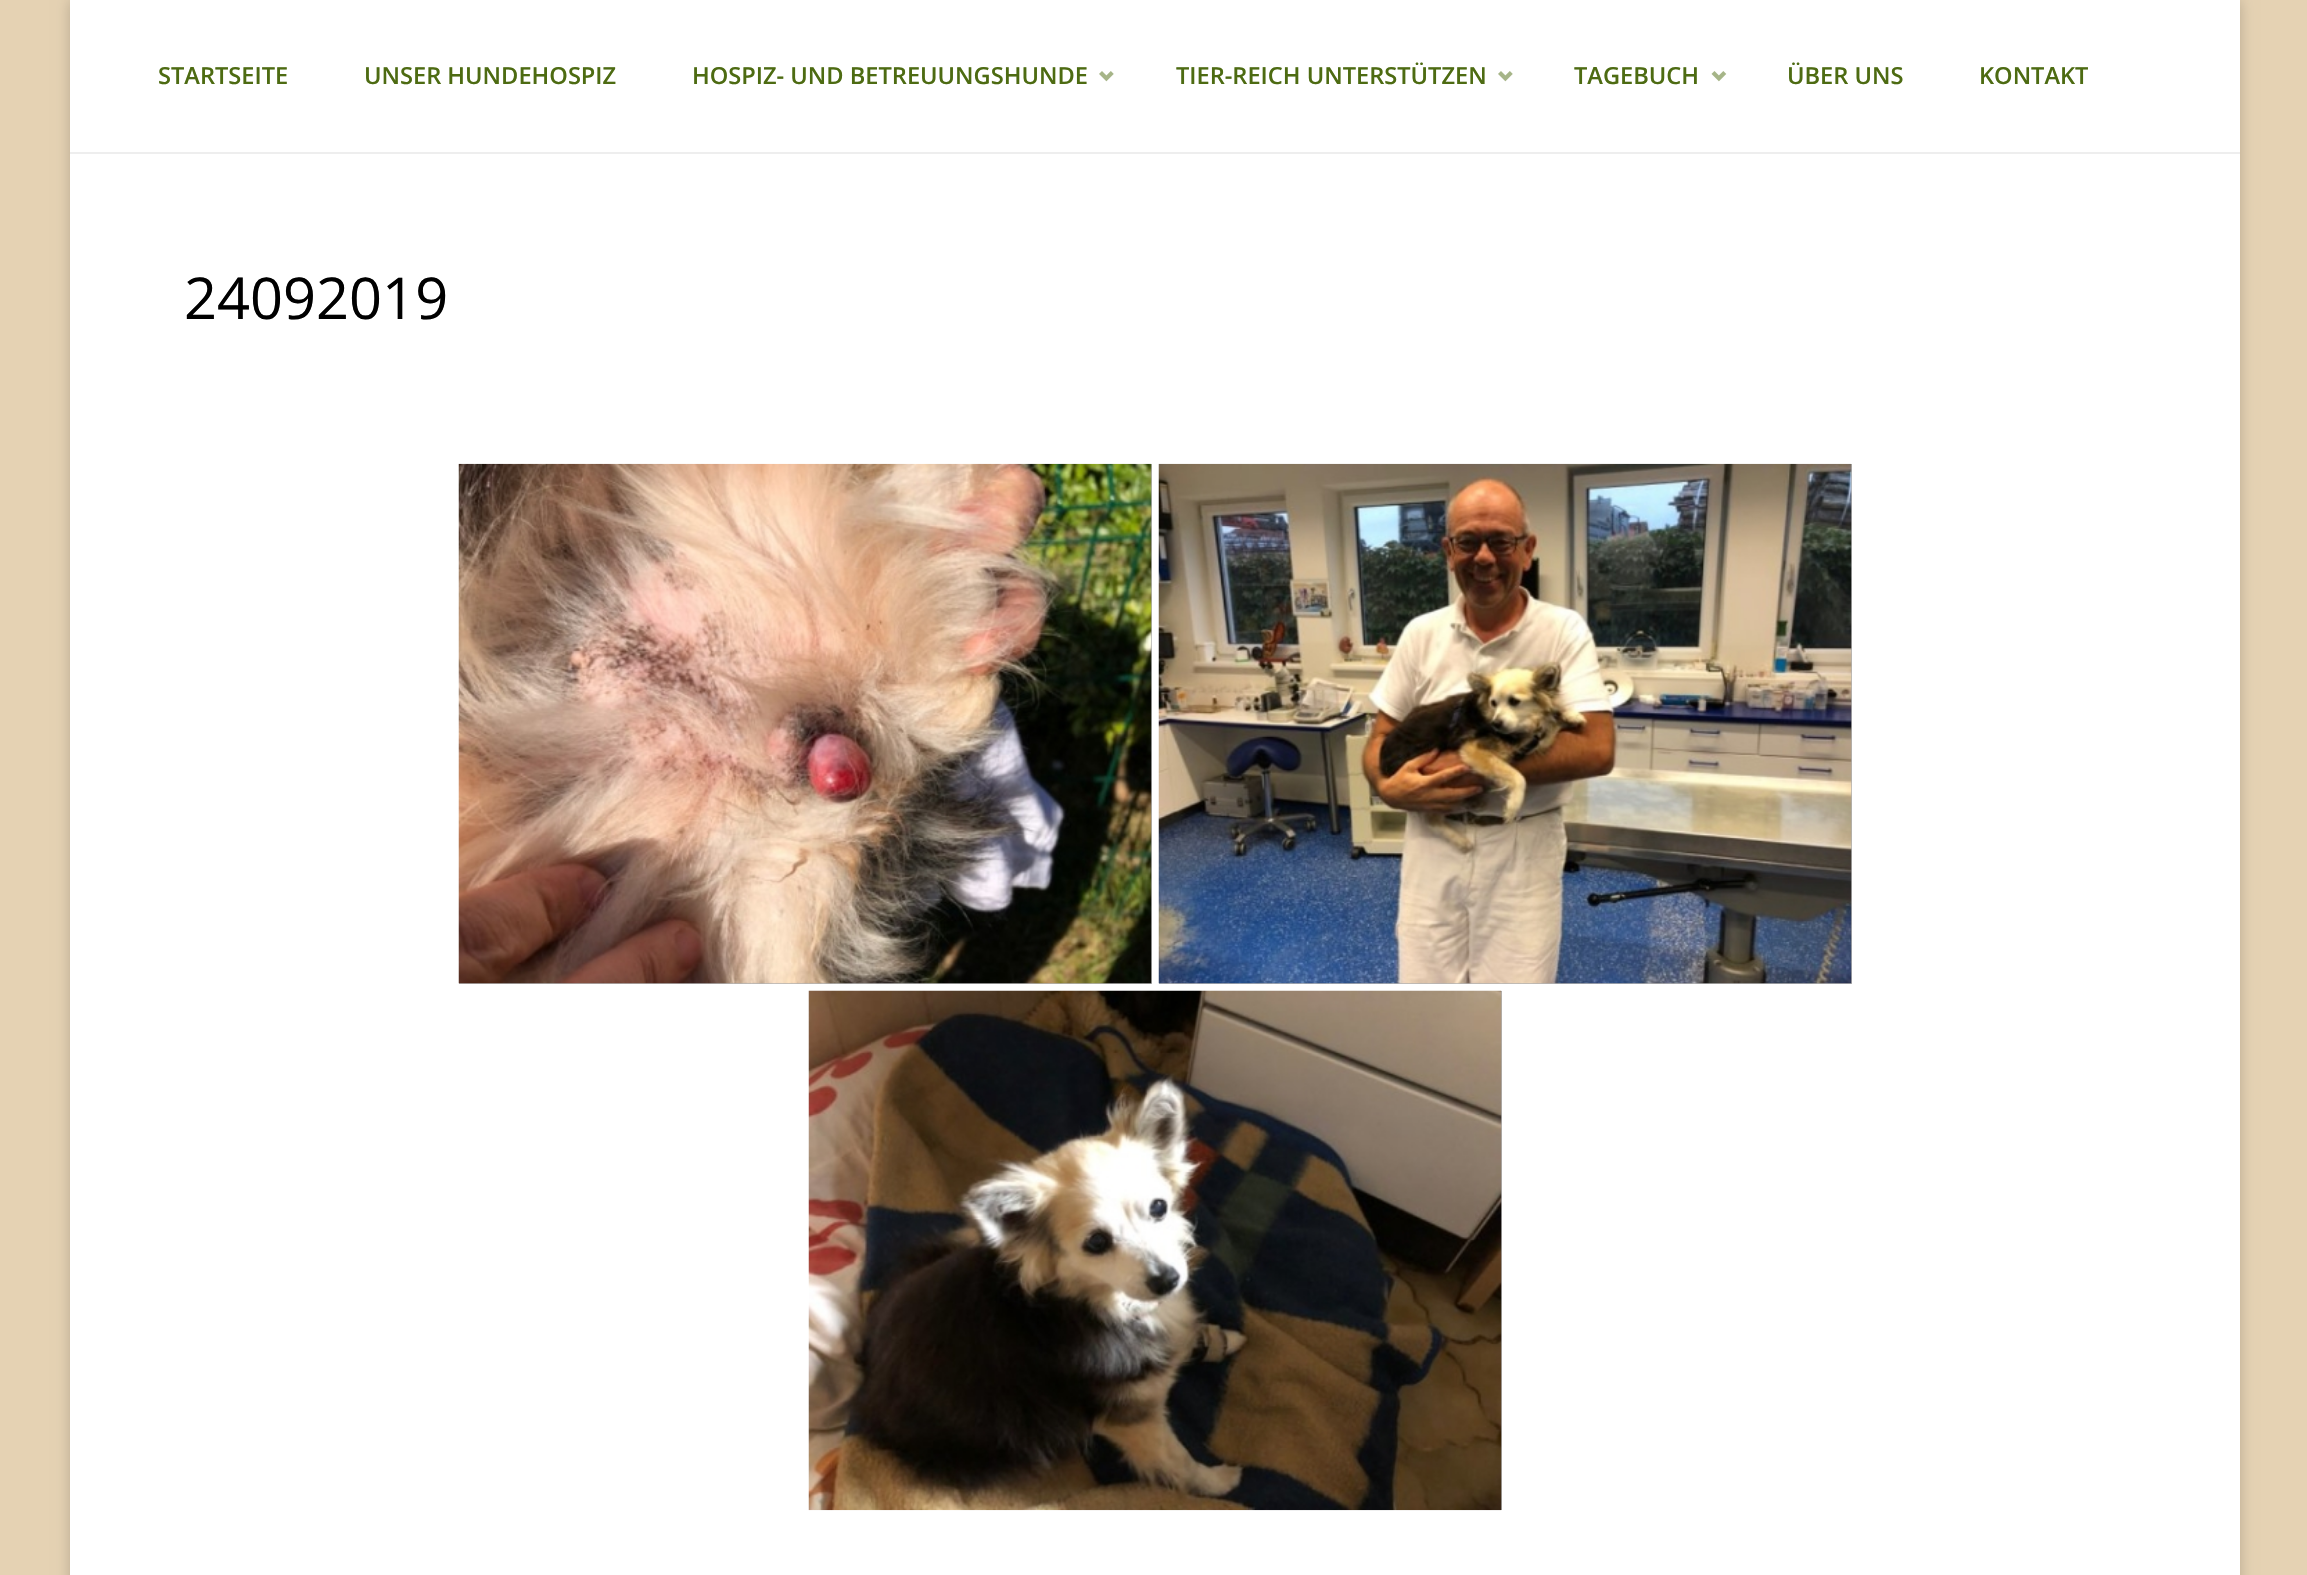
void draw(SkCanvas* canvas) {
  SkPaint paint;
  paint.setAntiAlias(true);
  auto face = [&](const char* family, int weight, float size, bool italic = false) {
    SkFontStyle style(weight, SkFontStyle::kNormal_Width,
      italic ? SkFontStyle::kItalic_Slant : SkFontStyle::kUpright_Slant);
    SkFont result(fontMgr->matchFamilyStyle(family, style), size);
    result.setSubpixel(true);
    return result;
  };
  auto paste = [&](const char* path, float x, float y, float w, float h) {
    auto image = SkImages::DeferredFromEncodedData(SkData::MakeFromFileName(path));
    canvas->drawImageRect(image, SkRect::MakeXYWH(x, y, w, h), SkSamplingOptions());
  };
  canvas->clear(0xffe5d2b3);
  paint.setColor(0x33000000);
  paint.setMaskFilter(SkMaskFilter::MakeBlur(kNormal_SkBlurStyle, 7));
  canvas->drawRect(SkRect::MakeXYWH(70, 0, 2170, 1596), paint);
  paint.setMaskFilter(nullptr);
  paint.setColor(0xffeeeeee);
  canvas->drawRect(SkRect::MakeXYWH(70, 152, 2170, 2), paint);
  paint.setColor(0xffffffff);
  canvas->drawRect(SkRect::MakeXYWH(70, 0, 2170, 152), paint);
  paste("img/1.png", 1099, 71, 15, 11);
  paste("img/1.png", 1498, 71, 15, 11);
  paste("img/2.png", 1711, 71, 16, 11);
  canvas->drawRect(SkRect::MakeXYWH(70, 154, 2170, 1421), paint);
  paint.setColor(0xffb3b3b3);
  canvas->drawRect(SkRect::MakeXYWH(459, 464, 693, 520), paint);
  paste("img/3.png", 458, 463, 694, 521);
  canvas->drawRect(SkRect::MakeXYWH(1159, 464, 693, 520), paint);
  paste("img/4.png", 1158, 463, 694, 521);
  canvas->drawRect(SkRect::MakeXYWH(1501, 991, 1, 519), paint);
  paste("img/5.png", 808, 990, 694, 521);
  auto f0 = face("Open Sans", 600, 23.6f);
  paint.setColor(0xff4d6b12);
  {
    const struct { const char* s; float x, y; } items[] = {
      {"STARTSEITE", 158, 84},
      {"UNSER HUNDEHOSPIZ", 364, 84},
      {"HOSPIZ- UND BETREUUNGSHUNDE", 692, 84},
      {"TIER-REICH UNTERSTÜTZEN", 1176, 84},
      {"TAGEBUCH", 1574, 84},
      {"ÜBER UNS", 1787, 84},
      {"KONTAKT", 1979, 84},
    };
    for (auto [s, x, y] : items) {
      canvas->drawString(s, x, y, f0, paint);
    }
  }
  auto f1 = face("Open Sans", 400, 57.75f);
  paint.setColor(0xff000000);
  canvas->drawString("24092019", 184, 319, f1, paint);
}
